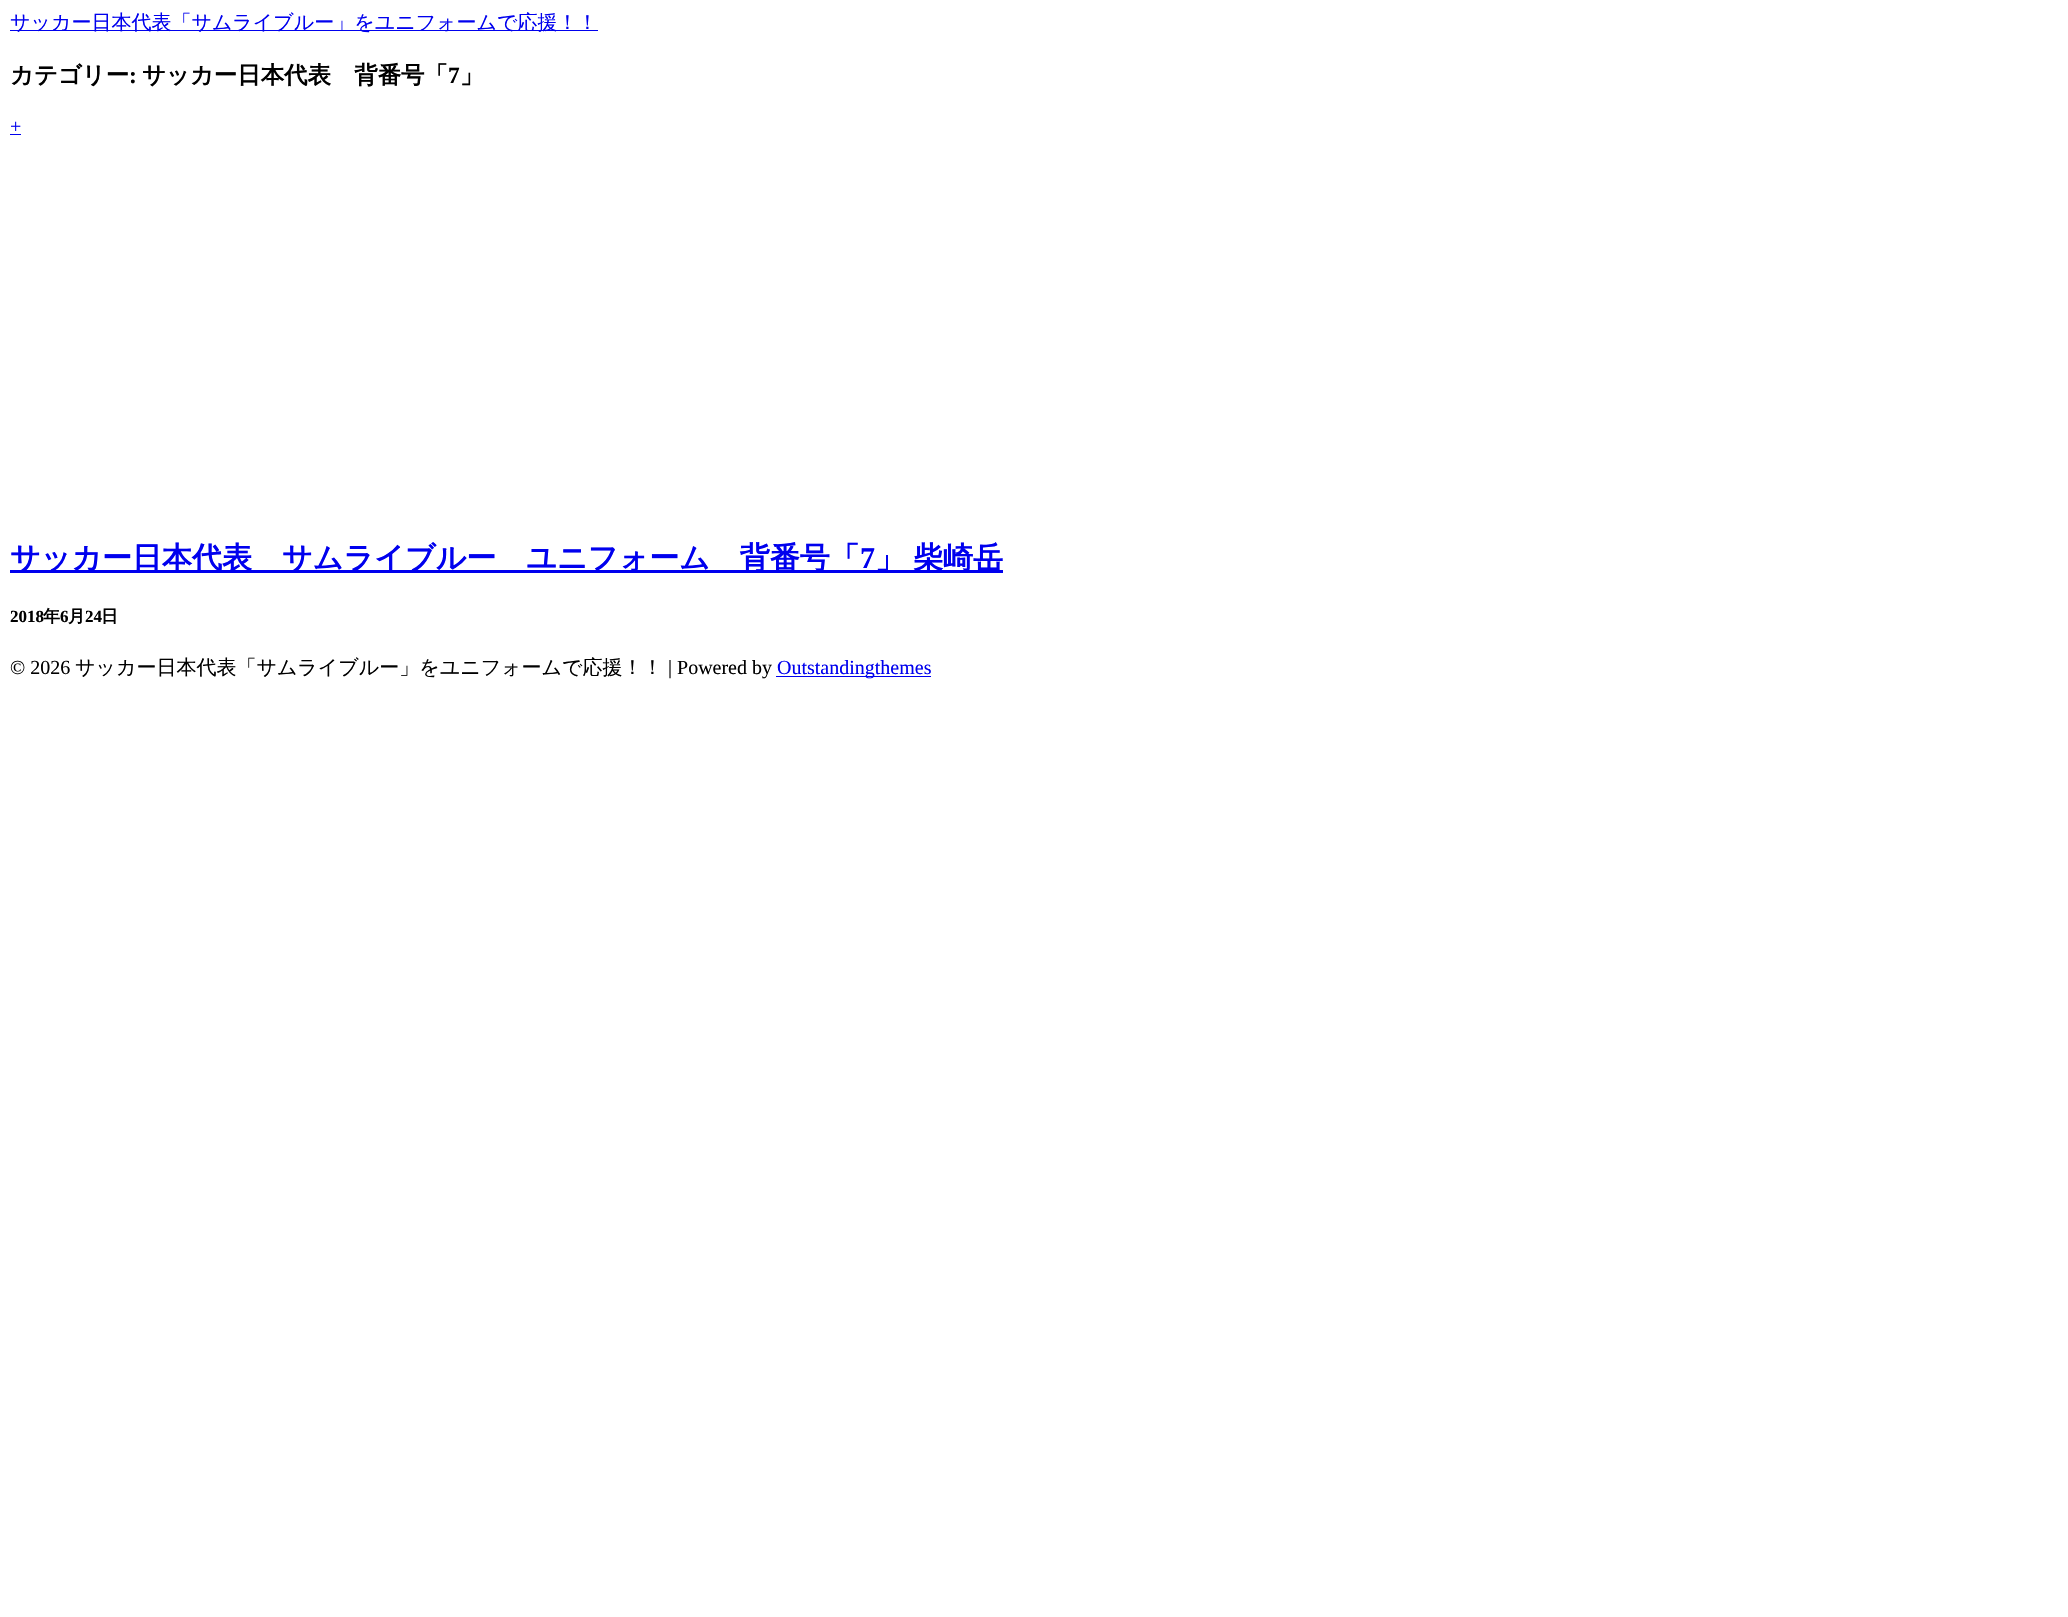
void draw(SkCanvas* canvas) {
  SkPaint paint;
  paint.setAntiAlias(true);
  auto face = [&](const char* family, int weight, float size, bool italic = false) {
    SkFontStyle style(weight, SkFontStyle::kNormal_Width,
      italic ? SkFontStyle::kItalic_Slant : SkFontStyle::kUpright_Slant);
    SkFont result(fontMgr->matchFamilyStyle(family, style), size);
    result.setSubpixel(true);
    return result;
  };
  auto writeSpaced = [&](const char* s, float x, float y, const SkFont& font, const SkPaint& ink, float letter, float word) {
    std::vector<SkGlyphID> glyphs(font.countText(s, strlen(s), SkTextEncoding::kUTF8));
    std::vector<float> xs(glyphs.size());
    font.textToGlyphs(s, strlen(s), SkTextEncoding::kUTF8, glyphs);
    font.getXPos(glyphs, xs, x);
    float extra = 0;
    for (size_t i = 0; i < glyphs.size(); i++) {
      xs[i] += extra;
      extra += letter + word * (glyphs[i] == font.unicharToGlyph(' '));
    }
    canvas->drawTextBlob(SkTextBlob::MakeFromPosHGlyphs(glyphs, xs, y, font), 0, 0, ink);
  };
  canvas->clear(0xffffffff);
  {
    const struct { float x, y, w, h; SkColor color; } items[] = {
      {10, 30, 588, 1, 0xff0000ee},
      {10, 134, 11, 1, 0xff0000ee},
      {10, 570, 993, 3, 0xff0000ee},
      {776, 676, 155, 1, 0xff0000ee},
    };
    for (auto [x, y, w, h, color] : items) {
      paint.setColor(color);
      canvas->drawRect(SkRect::MakeXYWH(x, y, w, h), paint);
    }
  }
  auto f0 = face("WenQuanYi Zen Hei", 500, 20);
  canvas->drawString("サッカー日本代表「サムライブルー」をユニフォームで応援！！", 10, 29, f0, paint);
  auto f1 = face("WenQuanYi Zen Hei", 700, 23.4f);
  paint.setColor(0xff000000);
  canvas->drawString("カテゴリー", 10, 83, f1, paint);
  auto f2 = face("Liberation Serif", 700, 23.4f);
  canvas->drawString(":", 129, 83, f2, paint);
  canvas->drawString("サッカー日本代表　背番号「", 142, 83, f1, paint);
  canvas->drawString("7", 448, 83, f2, paint);
  canvas->drawString("」", 460, 83, f1, paint);
  auto f3 = face("Liberation Serif", 400, 20);
  paint.setColor(0xff0000ee);
  canvas->drawString("+", 10, 133, f3, paint);
  auto f4 = face("WenQuanYi Zen Hei", 700, 30);
  canvas->drawString("サッカー日本代表　サムライブルー　ユニフォーム　背番号「", 10, 568, f4, paint);
  auto f5 = face("Liberation Serif", 700, 30);
  canvas->drawString("7", 860, 568, f5, paint);
  writeSpaced("」 柴崎岳", 875, 568, f4, paint, 0, -1);
  auto f6 = face("Liberation Serif", 700, 17);
  paint.setColor(0xff000000);
  canvas->drawString("2018", 10, 622, f6, paint);
  auto f7 = face("WenQuanYi Zen Hei", 700, 17);
  canvas->drawString("年", 43, 622, f7, paint);
  canvas->drawString("6", 60, 622, f6, paint);
  canvas->drawString("月", 68, 622, f7, paint);
  canvas->drawString("24", 85, 622, f6, paint);
  canvas->drawString("日", 101, 622, f7, paint);
  canvas->drawString("© 2026", 10, 674, f3, paint);
  canvas->drawString("サッカー日本代表「サムライブルー」をユニフォームで応援！！", 75, 674, f0, paint);
  canvas->drawString("| Powered by", 668, 674, f3, paint);
  paint.setColor(0xff0000ee);
  canvas->drawString("Outstandingthemes", 777, 674, f3, paint);
}
